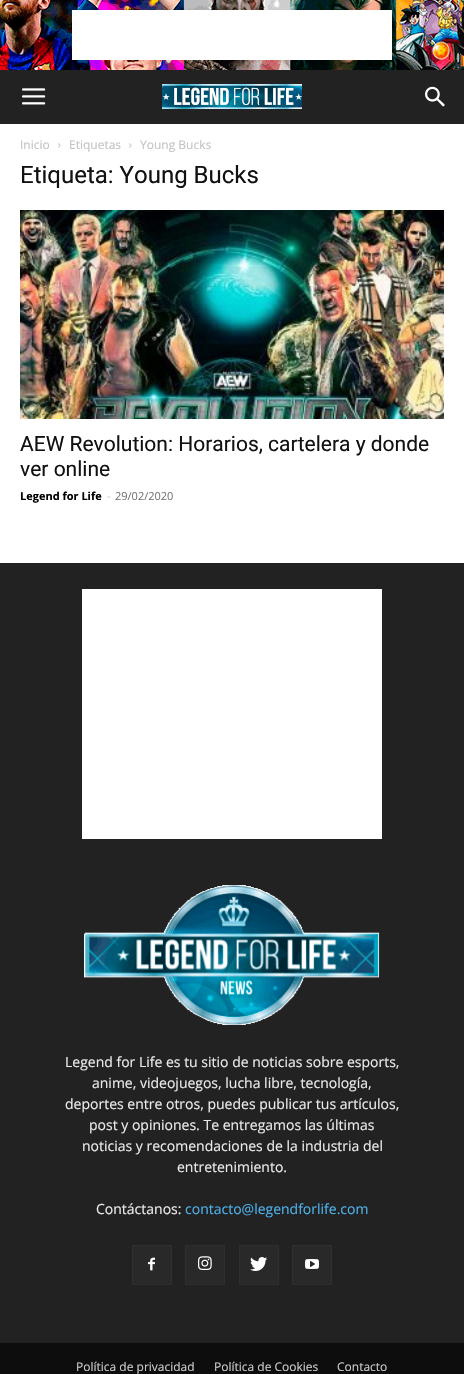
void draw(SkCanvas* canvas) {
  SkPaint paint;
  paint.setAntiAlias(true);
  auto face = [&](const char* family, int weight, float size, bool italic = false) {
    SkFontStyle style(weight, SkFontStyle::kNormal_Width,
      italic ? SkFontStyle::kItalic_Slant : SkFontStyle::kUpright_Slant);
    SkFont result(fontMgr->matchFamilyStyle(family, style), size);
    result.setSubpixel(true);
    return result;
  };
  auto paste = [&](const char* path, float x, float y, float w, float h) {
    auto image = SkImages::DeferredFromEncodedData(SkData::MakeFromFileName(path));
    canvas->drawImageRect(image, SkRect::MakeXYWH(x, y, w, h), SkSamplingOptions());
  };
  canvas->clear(0xffffffff);
  paste("img/1.png", 0, 0, 464, 70);
  paint.setColor(0xffffffff);
  canvas->drawRect(SkRect::MakeXYWH(72, 10, 320, 50), paint);
  paint.setColor(0xff222222);
  canvas->drawRect(SkRect::MakeXYWH(0, 70, 464, 54), paint);
  paste("img/2.png", 22, 88, 24, 17);
  paste("img/3.png", 162, 84, 140, 25);
  paste("img/4.png", 425, 86, 20, 21);
  paste("img/5.png", 58, 143, 3, 5);
  paste("img/5.png", 129, 143, 3, 5);
  paste("img/6.png", 20, 210, 424, 209);
  canvas->drawRect(SkRect::MakeXYWH(0, 563, 464, 780), paint);
  paint.setColor(0xffffffff);
  canvas->drawRect(SkRect::MakeXYWH(82, 589, 300, 250), paint);
  paste("img/7.png", 84, 885, 296, 140);
  paint.setColor(0xff292929);
  canvas->drawRect(SkRect::MakeXYWH(133, 1246, 38, 38), paint);
  paste("img/8.png", 148, 1257, 7, 14);
  paint.setStroke(true);
  paint.setStrokeWidth(1);
  paint.setColor(0xff2f2f2f);
  canvas->drawRect(SkRect::MakeXYWH(132.5f, 1245.5f, 39, 39), paint);
  paint.setStroke(false);
  paint.setColor(0xff292929);
  canvas->drawRect(SkRect::MakeXYWH(186, 1246, 38, 38), paint);
  paste("img/9.png", 198, 1256, 14, 14);
  paint.setStroke(true);
  paint.setColor(0xff2f2f2f);
  canvas->drawRect(SkRect::MakeXYWH(185.5f, 1245.5f, 39, 39), paint);
  paint.setStroke(false);
  paint.setColor(0xff292929);
  canvas->drawRect(SkRect::MakeXYWH(240, 1246, 38, 38), paint);
  paste("img/10.png", 250, 1257, 18, 14);
  paint.setStroke(true);
  paint.setColor(0xff2f2f2f);
  canvas->drawRect(SkRect::MakeXYWH(239.5f, 1245.5f, 39, 39), paint);
  paint.setStroke(false);
  paint.setColor(0xff292929);
  canvas->drawRect(SkRect::MakeXYWH(293, 1246, 38, 38), paint);
  paste("img/11.png", 305, 1259, 14, 10);
  paint.setStroke(true);
  paint.setColor(0xff2f2f2f);
  canvas->drawRect(SkRect::MakeXYWH(292.5f, 1245.5f, 39, 39), paint);
  paint.setStroke(false);
  paint.setColor(0xff0d0d0d);
  canvas->drawRect(SkRect::MakeXYWH(0, 1343, 464, 31), paint);
  auto f0 = face("Open Sans", 400, 12);
  paint.setColor(0xffc3c3c3);
  {
    const struct { const char* s; float x, y; } items[] = {
      {"Inicio", 20, 149},
      {"Etiquetas", 69, 149},
      {"Young Bucks", 140, 149},
    };
    for (auto [s, x, y] : items) {
      canvas->drawString(s, x, y, f0, paint);
    }
  }
  auto f1 = face("Roboto", 400, 24);
  paint.setColor(0xff111111);
  canvas->drawString("Etiqueta: Young Bucks", 20, 183, f1, paint);
  auto f2 = face("Roboto", 400, 21);
  canvas->drawString("AEW Revolution: Horarios, cartelera y donde", 20, 451, f2, paint);
  canvas->drawString("ver online", 20, 476, f2, paint);
  auto f3 = face("Open Sans", 700, 11);
  paint.setColor(0xff000000);
  canvas->drawString("Legend for Life", 20, 500, f3, paint);
  auto f4 = face("Open Sans", 400, 11);
  paint.setColor(0xffcccccc);
  canvas->drawString("-", 107, 500, f4, paint);
  paint.setColor(0xff767676);
  canvas->drawString("29/02/2020", 115, 500, f4, paint);
  auto f5 = face("Open Sans", 400, 14);
  paint.setColor(0xffeaeaea);
  {
    const struct { const char* s; float x, y; } items[] = {
      {"Legend for Life es tu sitio de noticias sobre esports,", 65, 1067},
      {"anime, videojuegos, lucha libre, tecnología,", 92, 1088},
      {"deportes entre otros, puedes publicar tus artículos,", 65, 1109},
      {"post y opiniones. Te entregamos las últimas", 89, 1130},
      {"noticias y recomendaciones de la industria del", 82, 1151},
      {"entretenimiento.", 177, 1172},
      {"Contáctanos:", 96, 1214},
    };
    for (auto [s, x, y] : items) {
      canvas->drawString(s, x, y, f5, paint);
    }
  }
  paint.setColor(0xff4db2ec);
  canvas->drawString("contacto@legendforlife.com", 185, 1214, f5, paint);
  paint.setColor(0xffcccccc);
  {
    const struct { const char* s; float x, y; } items[] = {
      {"Política de privacidad", 76, 1371},
      {"Política de Cookies", 214, 1371},
      {"Contacto", 337, 1371},
    };
    for (auto [s, x, y] : items) {
      canvas->drawString(s, x, y, f0, paint);
    }
  }
}
